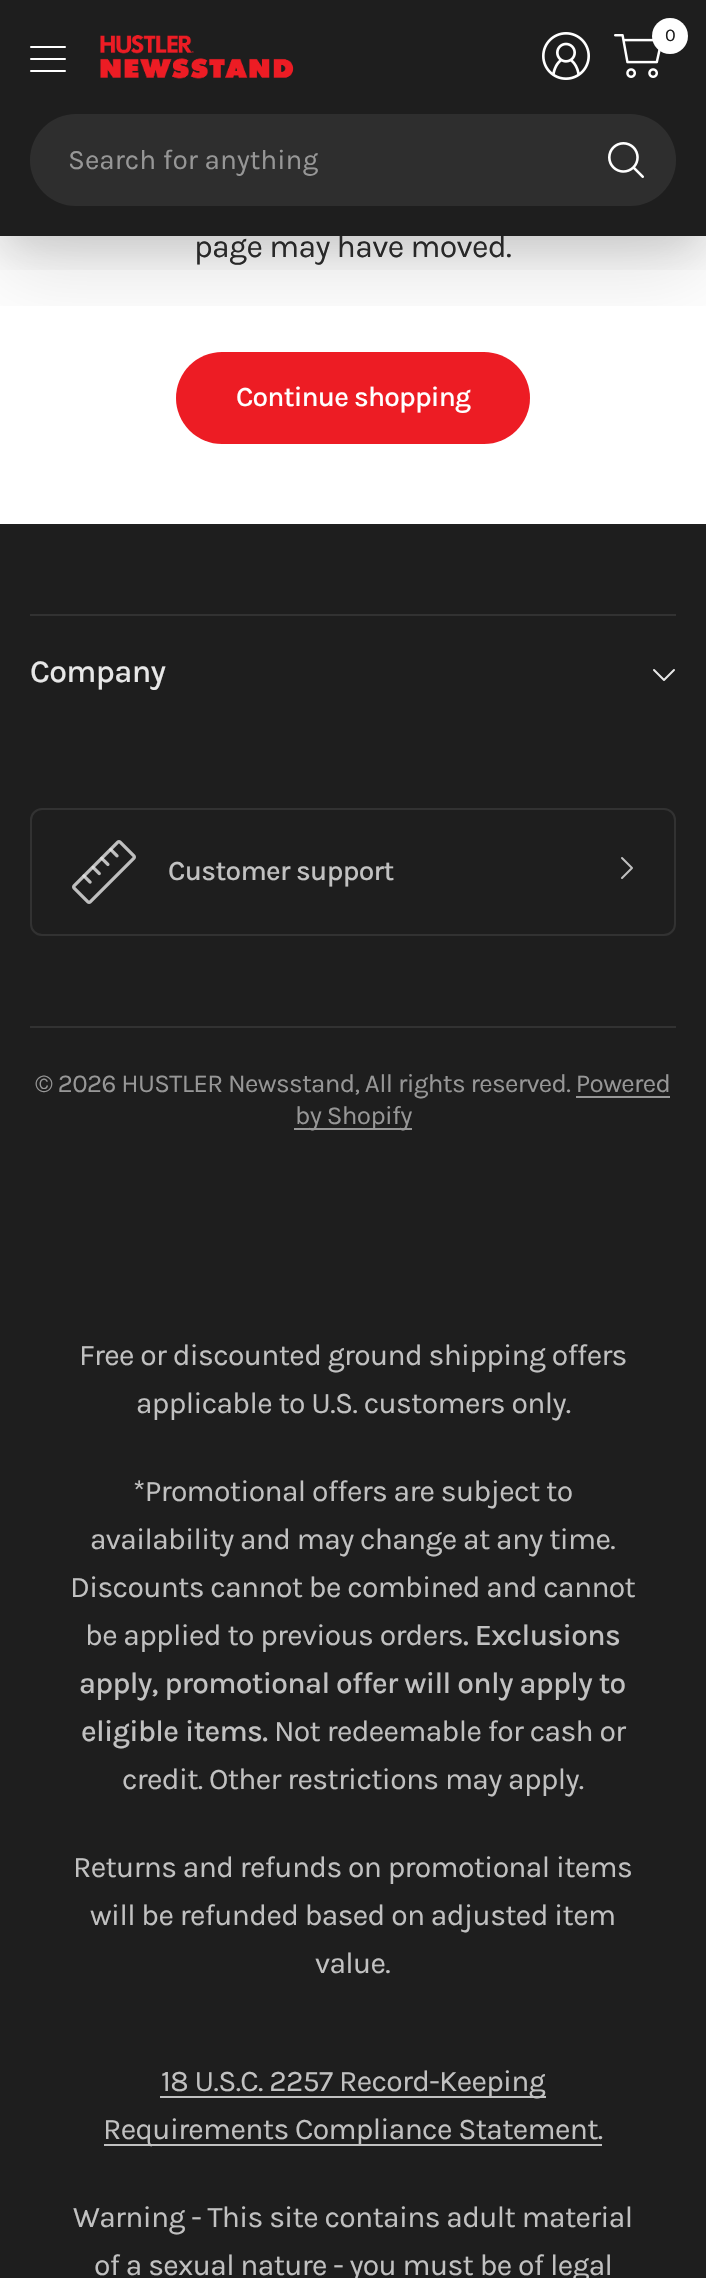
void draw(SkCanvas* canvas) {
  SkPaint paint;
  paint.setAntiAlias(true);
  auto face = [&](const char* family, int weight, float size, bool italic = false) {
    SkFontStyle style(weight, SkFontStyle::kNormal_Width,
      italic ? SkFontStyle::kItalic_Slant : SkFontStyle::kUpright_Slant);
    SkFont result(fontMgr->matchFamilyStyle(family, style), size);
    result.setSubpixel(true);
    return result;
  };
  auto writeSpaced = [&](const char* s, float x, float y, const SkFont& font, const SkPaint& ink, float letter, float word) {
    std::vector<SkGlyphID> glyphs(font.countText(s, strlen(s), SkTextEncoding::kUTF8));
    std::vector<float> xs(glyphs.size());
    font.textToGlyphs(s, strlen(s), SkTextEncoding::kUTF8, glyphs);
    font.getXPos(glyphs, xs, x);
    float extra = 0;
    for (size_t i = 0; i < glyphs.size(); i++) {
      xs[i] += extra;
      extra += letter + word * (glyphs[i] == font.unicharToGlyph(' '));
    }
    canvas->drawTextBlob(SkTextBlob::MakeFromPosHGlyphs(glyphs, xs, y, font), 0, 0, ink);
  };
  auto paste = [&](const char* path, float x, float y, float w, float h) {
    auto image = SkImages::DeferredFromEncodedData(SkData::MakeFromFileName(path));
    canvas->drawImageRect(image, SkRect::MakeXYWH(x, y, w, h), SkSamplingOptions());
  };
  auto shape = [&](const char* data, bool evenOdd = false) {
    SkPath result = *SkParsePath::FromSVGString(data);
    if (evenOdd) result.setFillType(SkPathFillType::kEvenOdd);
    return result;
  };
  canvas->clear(0xffffffff);
  paint.setColor(0xffed1c24);
  canvas->drawRoundRect(SkRect::MakeXYWH(176, 352, 354, 92), 46, 46, paint);
  {
    const struct { float x, y, w, h; SkColor color; } items[] = {
      {0, 524, 706, 2, 0xff202020},
      {0, 526, 706, 1752, 0xff1e1e1e},
      {30, 614, 646, 2, 0xff323232},
    };
    for (auto [x, y, w, h, color] : items) {
      paint.setColor(color);
      canvas->drawRect(SkRect::MakeXYWH(x, y, w, h), paint);
    }
  }
  paint.setStroke(true);
  paint.setStrokeWidth(2);
  paint.setStrokeCap(SkPaint::kRound_Cap);
  paint.setStrokeJoin(SkPaint::kRound_Join);
  paint.setColor(0xffe7e7e7);
  canvas->drawPath(shape("M674 670L664 680L654 670"), paint);
  paint.setStrokeCap(SkPaint::kButt_Cap);
  paint.setStrokeJoin(SkPaint::kMiter_Join);
  paint.setColor(0xff323232);
  canvas->drawRoundRect(SkRect::MakeXYWH(31, 809, 644, 126), 11, 11, paint);
  paste("img/5.png", 72, 840, 64, 64);
  paint.setStrokeCap(SkPaint::kRound_Cap);
  paint.setStrokeJoin(SkPaint::kRound_Join);
  paint.setColor(0xffbfbfbf);
  canvas->drawPath(shape("M622 858L632 868L622 878"), paint);
  paint.setStroke(false);
  {
    const struct { float x, y, w, h; SkColor color; } items[] = {
      {30, 1026, 646, 2, 0xff323232},
      {576, 1096, 94, 2, 0xff979797},
      {294, 1128, 118, 2, 0xff979797},
      {160, 2096, 386, 2, 0xffc1c1c1},
      {104, 2144, 498, 2, 0xffc1c1c1},
    };
    for (auto [x, y, w, h, color] : items) {
      paint.setColor(color);
      canvas->drawRect(SkRect::MakeXYWH(x, y, w, h), paint);
    }
  }
  auto f0 = face("Karla", 400, 32);
  paint.setColor(0xff2e2e2e);
  writeSpaced("page may have moved.", 194, 257, f0, paint, -0.65f, 0);
  paint.setColor(0xff1e1e1e);
  canvas->drawRect(SkRect::MakeXYWH(0, 0, 706, 236), paint);
  canvas->save();
  canvas->clipRect(SkRect::MakeXYWH(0, 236, 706, 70));
  paint.setColor(0x1a000000);
  paint.setMaskFilter(SkMaskFilter::MakeBlur(kNormal_SkBlurStyle, 38));
  canvas->drawRect(SkRect::MakeXYWH(0, 38, 706, 236), paint);
  paint.setMaskFilter(nullptr);
  canvas->restore();
  canvas->save();
  canvas->clipRect(SkRect::MakeXYWH(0, 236, 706, 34));
  paint.setColor(0x26000000);
  paint.setMaskFilter(SkMaskFilter::MakeBlur(kNormal_SkBlurStyle, 22));
  canvas->drawRect(SkRect::MakeXYWH(0, 10, 706, 236), paint);
  paint.setMaskFilter(nullptr);
  canvas->restore();
  paste("img/3.png", 614, 34, 47, 44);
  paint.setColor(0xffffffff);
  canvas->drawCircle(670, 36, 18, paint);
  auto f1 = face("Karla", 400, 18);
  paint.setColor(0xff1e1e1e);
  writeSpaced("0", 665, 41, f1, paint, -0.65f, 0);
  paste("img/2.png", 542, 32, 48, 48);
  paint.setColor(0xff2e2e2e);
  canvas->drawRoundRect(SkRect::MakeXYWH(30, 114, 646, 92), 46, 46, paint);
  paste("img/4.png", 608, 142, 36, 36);
  auto f2 = face("Karla", 400, 28);
  paint.setColor(0xff979797);
  canvas->drawString("Search for anything", 68, 169, f2, paint);
  paste("img/1.png", 100, 35, 194, 44);
  paint.setColor(0xffffffff);
  canvas->drawRoundRect(SkRect::MakeXYWH(30, 70, 36, 2), 1, 1, paint);
  canvas->drawRoundRect(SkRect::MakeXYWH(30, 58, 36, 2), 1, 1, paint);
  canvas->drawRoundRect(SkRect::MakeXYWH(30, 46, 36, 2), 1, 1, paint);
  auto f3 = face("Karla", 500, 28);
  writeSpaced("Continue shopping", 236, 406, f3, paint, -0.8f, 0);
  auto f4 = face("Karla", 500, 32);
  paint.setColor(0xffe7e7e7);
  writeSpaced("Company", 30, 682, f4, paint, -0.65f, 0);
  paint.setColor(0xffc1c1c1);
  writeSpaced("Customer support", 168, 880, f3, paint, -0.65f, 0);
  auto f5 = face("Karla", 400, 26);
  paint.setColor(0xff979797);
  writeSpaced("© 2026 HUSTLER Newsstand, All rights reserved. Powered", 35, 1092, f5, paint, -0.65f, 0);
  writeSpaced("by Shopify", 295, 1124, f5, paint, -0.65f, 0);
  auto f6 = face("Karla", 400, 30);
  paint.setColor(0xffc1c1c1);
  {
    const struct { const char* s; float x, y; } items[] = {
      {"Free or discounted ground shipping offers", 79, 1365},
      {"applicable to U.S. customers only.", 136, 1413},
      {"*Promotional offers are subject to", 133, 1501},
      {"availability and may change at any time.", 90, 1549},
      {"Discounts cannot be combined and cannot", 70, 1597},
      {"be applied to previous orders", 85, 1645},
    };
    for (auto [s, x, y] : items) {
      writeSpaced(s, x, y, f6, paint, -0.65f, 0);
    }
  }
  auto f7 = face("Karla", 500, 30);
  {
    const struct { const char* s; float x, y; } items[] = {
      {". Exclusions", 463, 1645},
      {"apply, promotional offer will only apply to", 79, 1693},
      {"eligible items.", 81, 1741},
    };
    for (auto [s, x, y] : items) {
      writeSpaced(s, x, y, f7, paint, -0.65f, 0);
    }
  }
  {
    const struct { const char* s; float x, y; } items[] = {
      {"Not redeemable for cash or", 274, 1741},
      {"credit. Other restrictions may apply.", 122, 1789},
      {"Returns and refunds on promotional items", 73, 1877},
      {"will be refunded based on adjusted item", 90, 1925},
      {"value.", 315, 1973},
      {"18 U.S.C. 2257 Record-Keeping", 161, 2091},
      {"Requirements Compliance Statement.", 103, 2139},
      {"Warning - This site contains adult material", 73, 2227},
      {"of a sexual nature - you must be of legal", 94, 2275},
    };
    for (auto [s, x, y] : items) {
      writeSpaced(s, x, y, f6, paint, -0.65f, 0);
    }
  }
}
